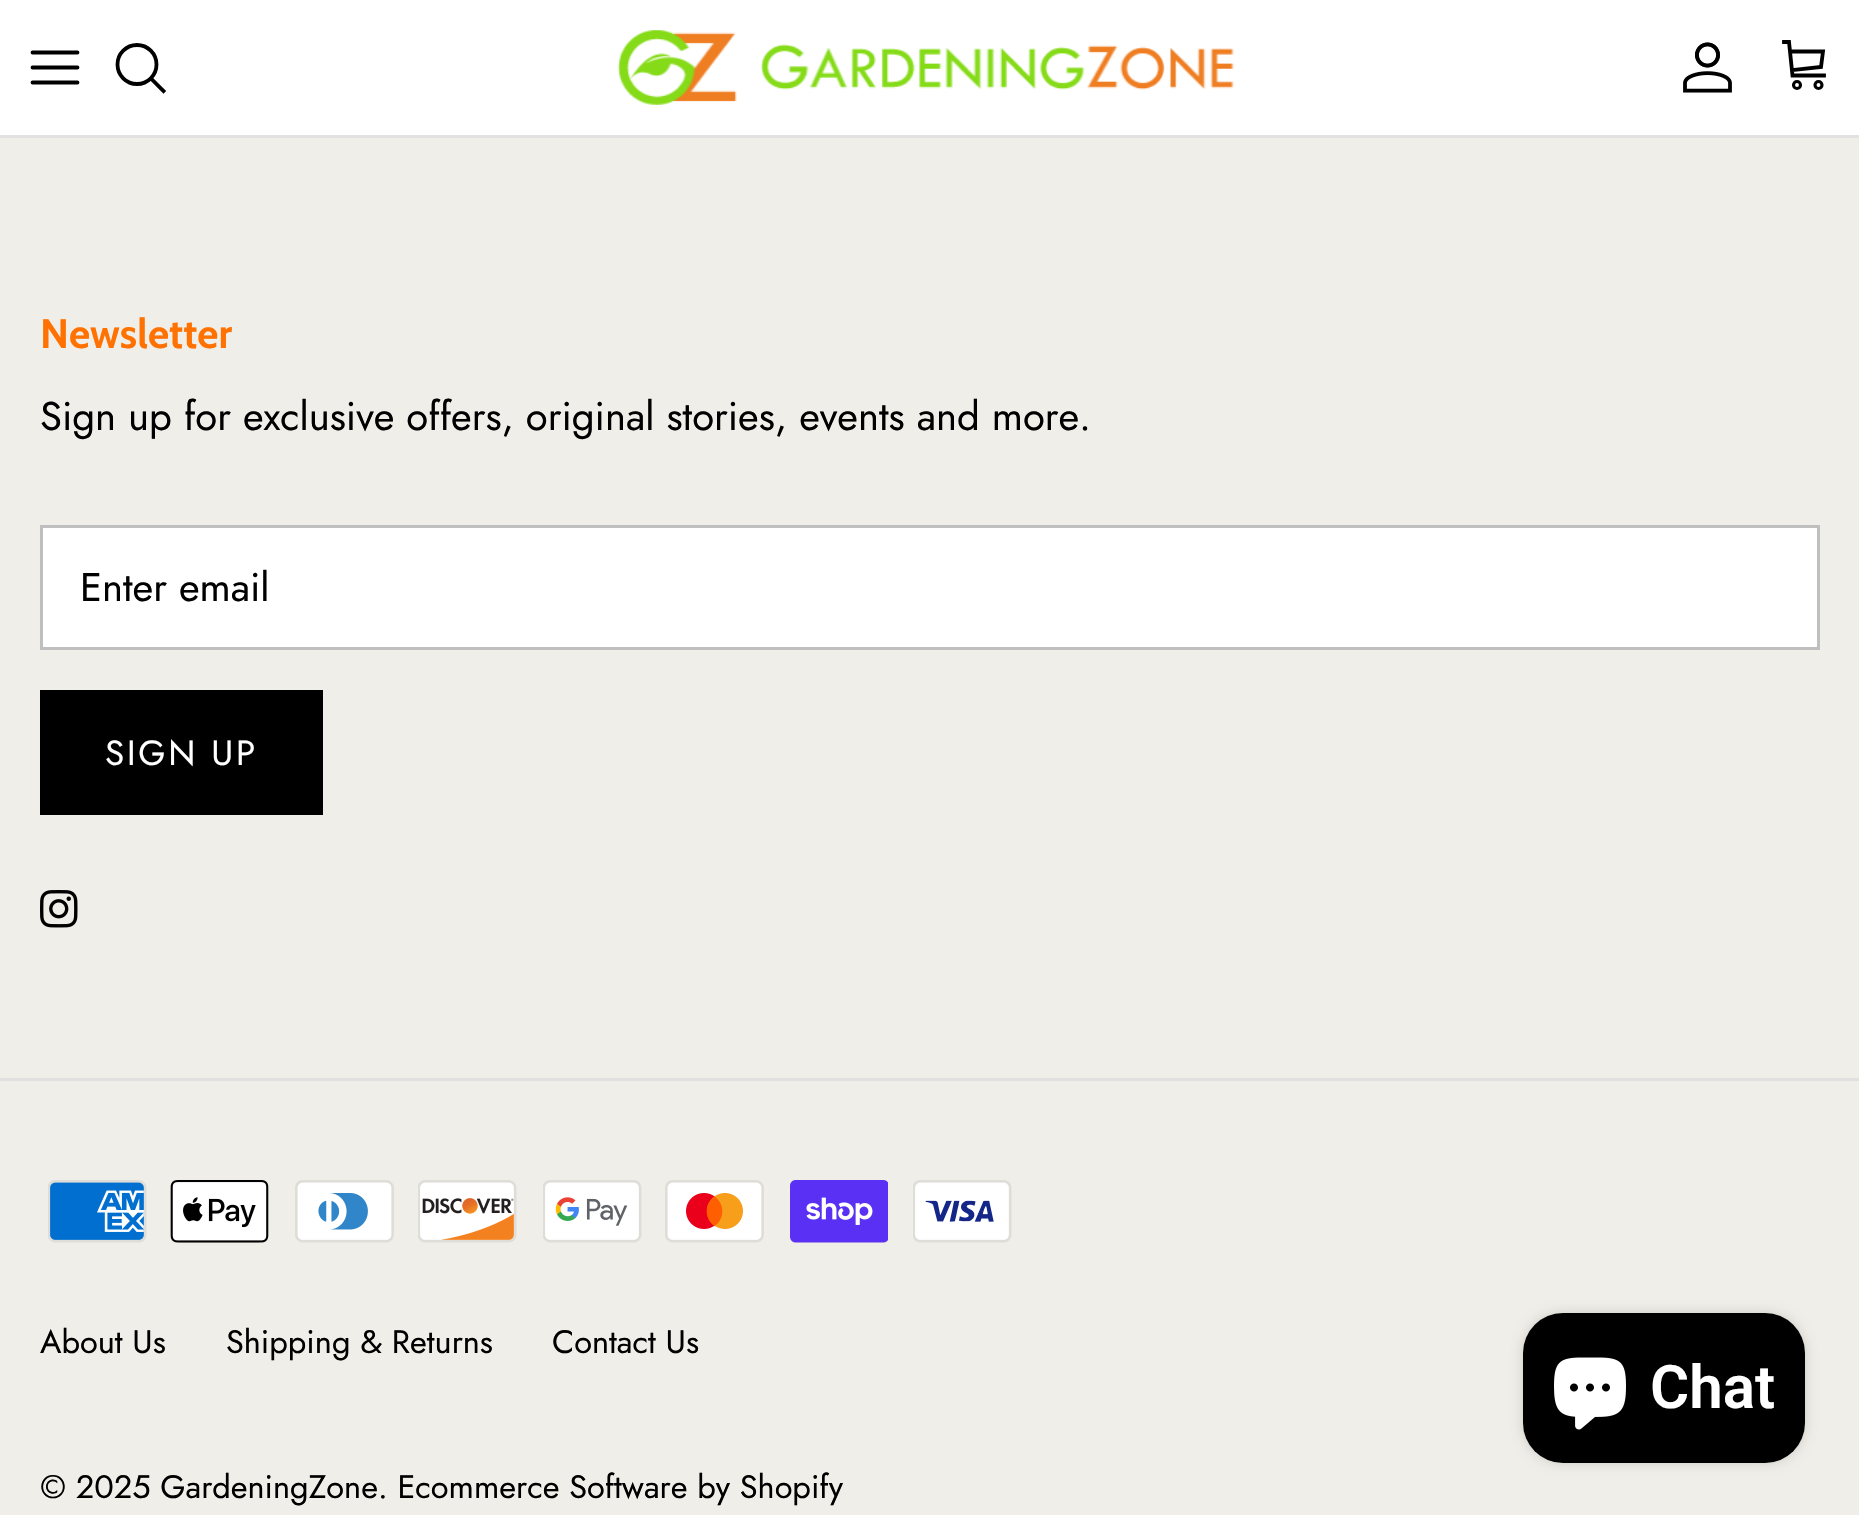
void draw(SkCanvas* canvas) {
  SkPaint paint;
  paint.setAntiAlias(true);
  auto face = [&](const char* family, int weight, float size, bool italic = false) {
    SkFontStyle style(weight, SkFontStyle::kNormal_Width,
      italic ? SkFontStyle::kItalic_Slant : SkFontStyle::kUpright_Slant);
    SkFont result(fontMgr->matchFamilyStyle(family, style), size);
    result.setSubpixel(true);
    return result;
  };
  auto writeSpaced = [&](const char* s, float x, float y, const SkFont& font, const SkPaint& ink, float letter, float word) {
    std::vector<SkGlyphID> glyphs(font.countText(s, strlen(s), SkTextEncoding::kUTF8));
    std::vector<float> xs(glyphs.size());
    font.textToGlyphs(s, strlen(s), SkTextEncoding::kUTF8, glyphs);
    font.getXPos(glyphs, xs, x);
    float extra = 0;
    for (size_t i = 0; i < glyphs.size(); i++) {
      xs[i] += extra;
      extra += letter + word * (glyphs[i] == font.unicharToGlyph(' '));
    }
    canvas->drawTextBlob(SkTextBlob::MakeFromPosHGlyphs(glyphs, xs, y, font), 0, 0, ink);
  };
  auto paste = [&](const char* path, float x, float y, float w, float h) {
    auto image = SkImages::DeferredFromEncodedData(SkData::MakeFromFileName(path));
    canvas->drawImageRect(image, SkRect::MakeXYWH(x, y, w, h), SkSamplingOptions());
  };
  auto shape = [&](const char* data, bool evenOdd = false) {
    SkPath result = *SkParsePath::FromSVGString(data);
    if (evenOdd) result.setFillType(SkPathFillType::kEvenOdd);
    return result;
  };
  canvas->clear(0xfff0eee8);
  paint.setColor(0xffffffff);
  canvas->drawRect(SkRect::MakeXYWH(0, 0, 1859, 135), paint);
  paint.setColor(0xffe2e2e2);
  canvas->drawRect(SkRect::MakeXYWH(0, 135, 1859, 3), paint);
  paint.setStroke(true);
  paint.setStrokeWidth(3.8f);
  paint.setStrokeCap(SkPaint::kRound_Cap);
  paint.setStrokeJoin(SkPaint::kRound_Join);
  paint.setColor(0xff000000);
  canvas->drawPath(shape("M32.5 67.5H77.5M32.5 52.5H77.5M32.5 82.5H77.5"), paint);
  paint.setStrokeCap(SkPaint::kButt_Cap);
  paint.setStrokeJoin(SkPaint::kMiter_Join);
  canvas->drawCircle(137, 64.5f, 19.5f, paint);
  paint.setStrokeCap(SkPaint::kSquare_Cap);
  canvas->drawPath(shape("M152.5 80L163.5 91"), paint);
  paste("img/1.png", 617, 30, 617, 75);
  paste("img/2.png", 1683, 42, 49, 51);
  canvas->drawPath(shape("M1784 42H1789L1792.5 75.5H1824M1790.5 51.5H1823L1821 67L1794 70"), paint);
  paint.setStrokeWidth(3.1f);
  paint.setStrokeCap(SkPaint::kButt_Cap);
  canvas->drawCircle(1797, 85, 3.5f, paint);
  canvas->drawCircle(1818.5f, 85, 3.5f, paint);
  paint.setStroke(false);
  paint.setColor(0xffffffff);
  canvas->drawRect(SkRect::MakeXYWH(41.5f, 526.5f, 1777, 122), paint);
  paint.setStroke(true);
  paint.setStrokeWidth(3);
  paint.setColor(0xffbfbfbf);
  canvas->drawRect(SkRect::MakeXYWH(41.5f, 526.5f, 1777, 122), paint);
  paint.setStroke(false);
  paint.setColor(0xff000000);
  canvas->drawRect(SkRect::MakeXYWH(40, 690, 283, 125), paint);
  paste("img/3.png", 40, 890, 38, 38);
  paint.setColor(0xffe0e0e0);
  canvas->drawRect(SkRect::MakeXYWH(0, 1078, 1859, 3), paint);
  paste("img/4.png", 48, 1180, 99, 63);
  paste("img/5.png", 170, 1180, 99, 63);
  paste("img/6.png", 295, 1180, 99, 63);
  paste("img/7.png", 418, 1180, 99, 63);
  paste("img/8.png", 543, 1180, 99, 63);
  paste("img/9.png", 665, 1180, 99, 63);
  paste("img/10.png", 790, 1180, 98, 63);
  paste("img/11.png", 913, 1180, 99, 63);
  paint.setColor(0x26000000);
  paint.setMaskFilter(SkMaskFilter::MakeBlur(kNormal_SkBlurStyle, 6));
  canvas->drawRoundRect(SkRect::MakeXYWH(1523, 1313, 282, 150), 40, 40, paint);
  paint.setMaskFilter(nullptr);
  paint.setColor(0xff000000);
  canvas->drawRoundRect(SkRect::MakeXYWH(1523, 1313, 282, 150), 40, 40, paint);
  paste("img/12.png", 1554, 1357, 72, 73);
  auto f0 = face("Cabin", 700, 41);
  paint.setColor(0xffff7100);
  canvas->drawString("Newsletter", 40, 348, f0, paint);
  auto f1 = face("Jost", 400, 40);
  paint.setColor(0xff000000);
  canvas->drawString("Sign up for exclusive offers, original stories, events and more.", 40, 430, f1, paint);
  canvas->drawString("Enter email", 80, 601, f1, paint);
  auto f2 = face("Jost", 400, 35);
  paint.setColor(0xffffffff);
  writeSpaced("SIGN UP", 105, 765, f2, paint, 2.75f, 0);
  auto f3 = face("Jost", 400, 32.5f);
  paint.setColor(0xff000000);
  {
    const struct { const char* s; float x, y; } items[] = {
      {"About Us", 40, 1353},
      {"Shipping & Returns", 226, 1353},
      {"Contact Us", 552, 1353},
      {"© 2025 GardeningZone. Ecommerce Software by Shopify", 40, 1498},
    };
    for (auto [s, x, y] : items) {
      canvas->drawString(s, x, y, f3, paint);
    }
  }
  auto f4 = face("Roboto", 600, 60);
  paint.setColor(0xffffffff);
  canvas->drawString("Chat", 1650, 1408, f4, paint);
}
